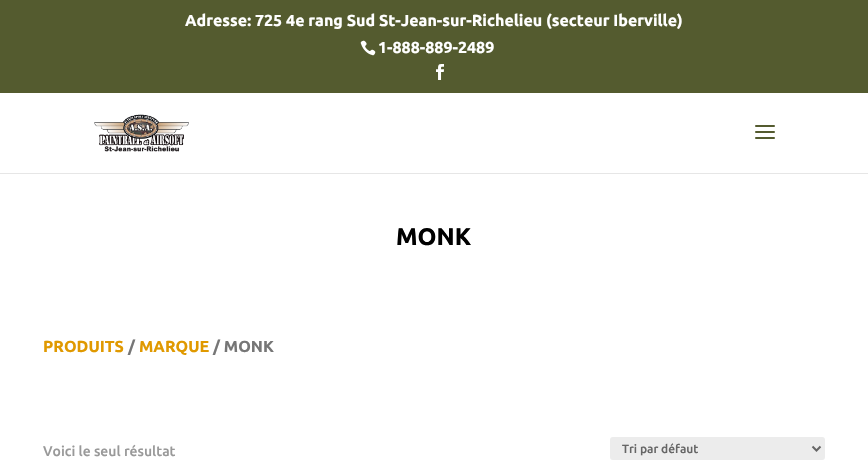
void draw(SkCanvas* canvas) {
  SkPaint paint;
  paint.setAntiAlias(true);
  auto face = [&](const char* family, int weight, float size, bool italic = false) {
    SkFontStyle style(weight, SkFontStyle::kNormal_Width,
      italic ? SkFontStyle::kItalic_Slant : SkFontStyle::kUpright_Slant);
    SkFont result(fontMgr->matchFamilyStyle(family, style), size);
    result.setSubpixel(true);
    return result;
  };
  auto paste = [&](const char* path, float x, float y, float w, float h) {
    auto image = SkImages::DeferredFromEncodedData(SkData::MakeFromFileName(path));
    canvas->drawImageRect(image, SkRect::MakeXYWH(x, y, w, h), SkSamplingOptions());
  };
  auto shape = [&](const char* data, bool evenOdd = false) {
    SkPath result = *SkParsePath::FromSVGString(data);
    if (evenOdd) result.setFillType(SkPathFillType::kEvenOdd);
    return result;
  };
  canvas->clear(0xffffffff);
  paint.setColor(0xff545b2f);
  canvas->drawRect(SkRect::MakeXYWH(0, 0, 868, 93), paint);
  paste("img/1.png", 360, 40, 16, 16);
  paste("img/2.png", 436, 64, 8, 16);
  paint.setColor(0xffe6e6e6);
  canvas->drawRect(SkRect::MakeXYWH(0, 173, 868, 1), paint);
  paste("img/3.png", 94, 114, 95, 38);
  paste("img/4.png", 755, 125, 20, 14);
  paint.setColor(0xffececec);
  canvas->drawRoundRect(SkRect::MakeXYWH(610, 437, 215, 23), 3, 3, paint);
  paint.setStroke(true);
  paint.setStrokeWidth(2);
  paint.setColor(0xff666666);
  canvas->drawPath(shape("M812.5 446.5L816.5 450.5L820.5 446.5"), paint);
  auto f0 = face("Ubuntu", 700, 16);
  paint.setStroke(false);
  paint.setColor(0xffffffff);
  canvas->drawString("Adresse: 725 4e rang Sud St-Jean-sur-Richelieu (secteur Iberville)", 185, 26, f0, paint);
  canvas->drawString("1-888-889-2489", 378, 53, f0, paint);
  auto f1 = face("Ubuntu", 700, 24);
  paint.setColor(0xff000000);
  canvas->drawString("MONK", 396, 245, f1, paint);
  paint.setColor(0xffe09900);
  canvas->drawString("PRODUITS", 43, 352, f0, paint);
  paint.setColor(0xff767676);
  canvas->drawString("/", 128, 352, f0, paint);
  paint.setColor(0xffe09900);
  canvas->drawString("MARQUE", 139, 352, f0, paint);
  paint.setColor(0xff767676);
  canvas->drawString("/ MONK", 213, 352, f0, paint);
  auto f2 = face("Ubuntu", 500, 14);
  paint.setColor(0xff999999);
  canvas->drawString("Voici le seul résultat", 43, 456, f2, paint);
  auto f3 = face("Ubuntu", 500, 12);
  paint.setColor(0xff666666);
  canvas->drawString("Tri par défaut", 622, 453, f3, paint);
}
